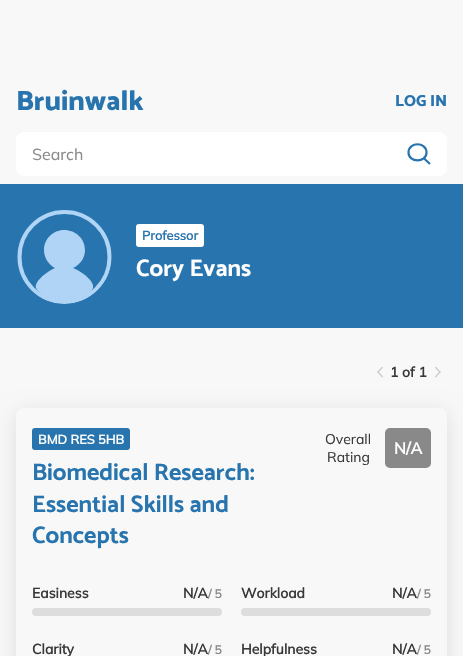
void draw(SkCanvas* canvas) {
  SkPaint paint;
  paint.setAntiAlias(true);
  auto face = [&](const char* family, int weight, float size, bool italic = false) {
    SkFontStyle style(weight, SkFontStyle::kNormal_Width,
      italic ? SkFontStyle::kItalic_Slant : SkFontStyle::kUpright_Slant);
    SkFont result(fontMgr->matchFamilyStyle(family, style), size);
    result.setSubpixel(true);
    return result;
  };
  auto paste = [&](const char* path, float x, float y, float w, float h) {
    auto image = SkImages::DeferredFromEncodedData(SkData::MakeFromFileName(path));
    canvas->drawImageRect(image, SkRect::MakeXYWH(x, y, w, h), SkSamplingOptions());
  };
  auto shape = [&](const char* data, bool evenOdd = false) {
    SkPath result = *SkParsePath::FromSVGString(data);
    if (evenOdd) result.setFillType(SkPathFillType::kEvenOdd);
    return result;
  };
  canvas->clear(0xfff8f8f8);
  paint.setColor(0xffffffff);
  canvas->drawRoundRect(SkRect::MakeXYWH(16, 132, 431, 44), 8, 8, paint);
  paint.setStroke(true);
  paint.setStrokeWidth(2.2f);
  paint.setColor(0xff2774ae);
  canvas->drawPath(shape("M426.5 152.5C426.5 163 408.5 163 408.5 152.5C408.5 141.5 426.5 141.5 426.5 152.5ZM423.5 158L430 164"), paint);
  paint.setStroke(false);
  canvas->drawRect(SkRect::MakeXYWH(0, 184, 463, 144), paint);
  paint.setColor(0xffb0d4f5);
  canvas->drawPath(shape("M93 288C95 282 83 272 73 268C80 265 85 258 85 250C85 239 76 230 64 230C53 230 44 239 44 250C44 258 49 265 55 268C46 272 34 282 36 288C46 305 85 305 93 288Z"), paint);
  canvas->save();
  canvas->clipPath(shape("M64 208C90.5 208 112 229.5 112 256C112 282.5 90.5 304 64 304C37.5 304 16 282.5 16 256C16 229.5 37.5 208 64 208Z"), true);
  paint.setStroke(true);
  paint.setStrokeWidth(4);
  canvas->drawCircle(64.5f, 257, 45, paint);
  canvas->restore();
  paint.setStroke(false);
  paint.setColor(0xffffffff);
  canvas->drawRoundRect(SkRect::MakeXYWH(136, 224, 68, 23), 3, 3, paint);
  paste("img/1.png", 377, 366, 6, 12);
  paste("img/2.png", 435, 366, 6, 12);
  canvas->save();
  canvas->clipPath(shape("M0 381H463V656H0ZM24 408H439C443.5 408 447 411.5 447 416V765C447 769.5 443.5 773 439 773H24C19.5 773 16 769.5 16 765V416C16 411.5 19.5 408 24 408Z", true), true);
  paint.setColor(0x1a000000);
  paint.setMaskFilter(SkMaskFilter::MakeBlur(kNormal_SkBlurStyle, 10));
  canvas->drawRoundRect(SkRect::MakeXYWH(16, 412, 431, 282), 8, 8, paint);
  paint.setMaskFilter(nullptr);
  canvas->restore();
  paint.setColor(0xff2774ae);
  canvas->drawRoundRect(SkRect::MakeXYWH(32, 428, 98, 22), 3, 3, paint);
  paint.setColor(0xff898989);
  canvas->drawRoundRect(SkRect::MakeXYWH(385, 428, 46, 40), 5, 5, paint);
  paint.setColor(0xffdddddd);
  canvas->drawRoundRect(SkRect::MakeXYWH(32, 608, 190, 8), 4, 4, paint);
  canvas->drawRoundRect(SkRect::MakeXYWH(241, 608, 190, 8), 4, 4, paint);
  auto f0 = face("Catamaran", 800, 28);
  paint.setColor(0xff2774ae);
  canvas->drawString("Bruinwalk", 16, 110, f0, paint);
  auto f1 = face("Catamaran", 800, 16);
  canvas->drawString("LOG IN", 395, 106, f1, paint);
  auto f2 = face("Mulish", 200, 16);
  paint.setColor(0xff898989);
  canvas->drawString("Search", 32, 160, f2, paint);
  auto f3 = face("Mulish", 700, 12.75f);
  paint.setColor(0xff2774ae);
  canvas->drawString("Professor", 142, 240, f3, paint);
  auto f4 = face("Catamaran", 700, 24);
  paint.setColor(0xffffffff);
  canvas->drawString("Cory Evans", 136, 276, f4, paint);
  auto f5 = face("Mulish", 700, 14);
  paint.setColor(0xff383838);
  canvas->drawString("1 of 1", 390, 377, f5, paint);
  paint.setColor(0xffffffff);
  canvas->drawString("BMD RES 5HB", 38, 444, f3, paint);
  paint.setColor(0xff2774ae);
  {
    const struct { const char* s; float x, y; } items[] = {
      {"Biomedical Research:", 32, 480},
      {"Essential Skills and", 32, 512},
      {"Concepts", 32, 543},
    };
    for (auto [s, x, y] : items) {
      canvas->drawString(s, x, y, f4, paint);
    }
  }
  auto f6 = face("Mulish", 200, 14);
  paint.setColor(0xff383838);
  canvas->drawString("Overall", 325, 444, f6, paint);
  canvas->drawString("Rating", 327, 462, f6, paint);
  auto f7 = face("Mulish", 700, 16);
  paint.setColor(0xffffffff);
  canvas->drawString("N/A", 394, 454, f7, paint);
  paint.setColor(0xff383838);
  canvas->drawString("Easiness", 32, 598, f5, paint);
  canvas->drawString("N/A", 183, 598, f5, paint);
  auto f8 = face("Mulish", 700, 12);
  paint.setColor(0xff898989);
  canvas->drawString("/ 5", 208, 598, f8, paint);
  paint.setColor(0xff383838);
  canvas->drawString("Workload", 241, 598, f5, paint);
  canvas->drawString("N/A", 392, 598, f5, paint);
  paint.setColor(0xff898989);
  canvas->drawString("/ 5", 417, 598, f8, paint);
  paint.setColor(0xff383838);
  canvas->drawString("Clarity", 32, 654, f5, paint);
  canvas->drawString("N/A", 183, 654, f5, paint);
  paint.setColor(0xff898989);
  canvas->drawString("/ 5", 208, 654, f8, paint);
  paint.setColor(0xff383838);
  canvas->drawString("Helpfulness", 241, 654, f5, paint);
  canvas->drawString("N/A", 392, 654, f5, paint);
  paint.setColor(0xff898989);
  canvas->drawString("/ 5", 417, 654, f8, paint);
}
